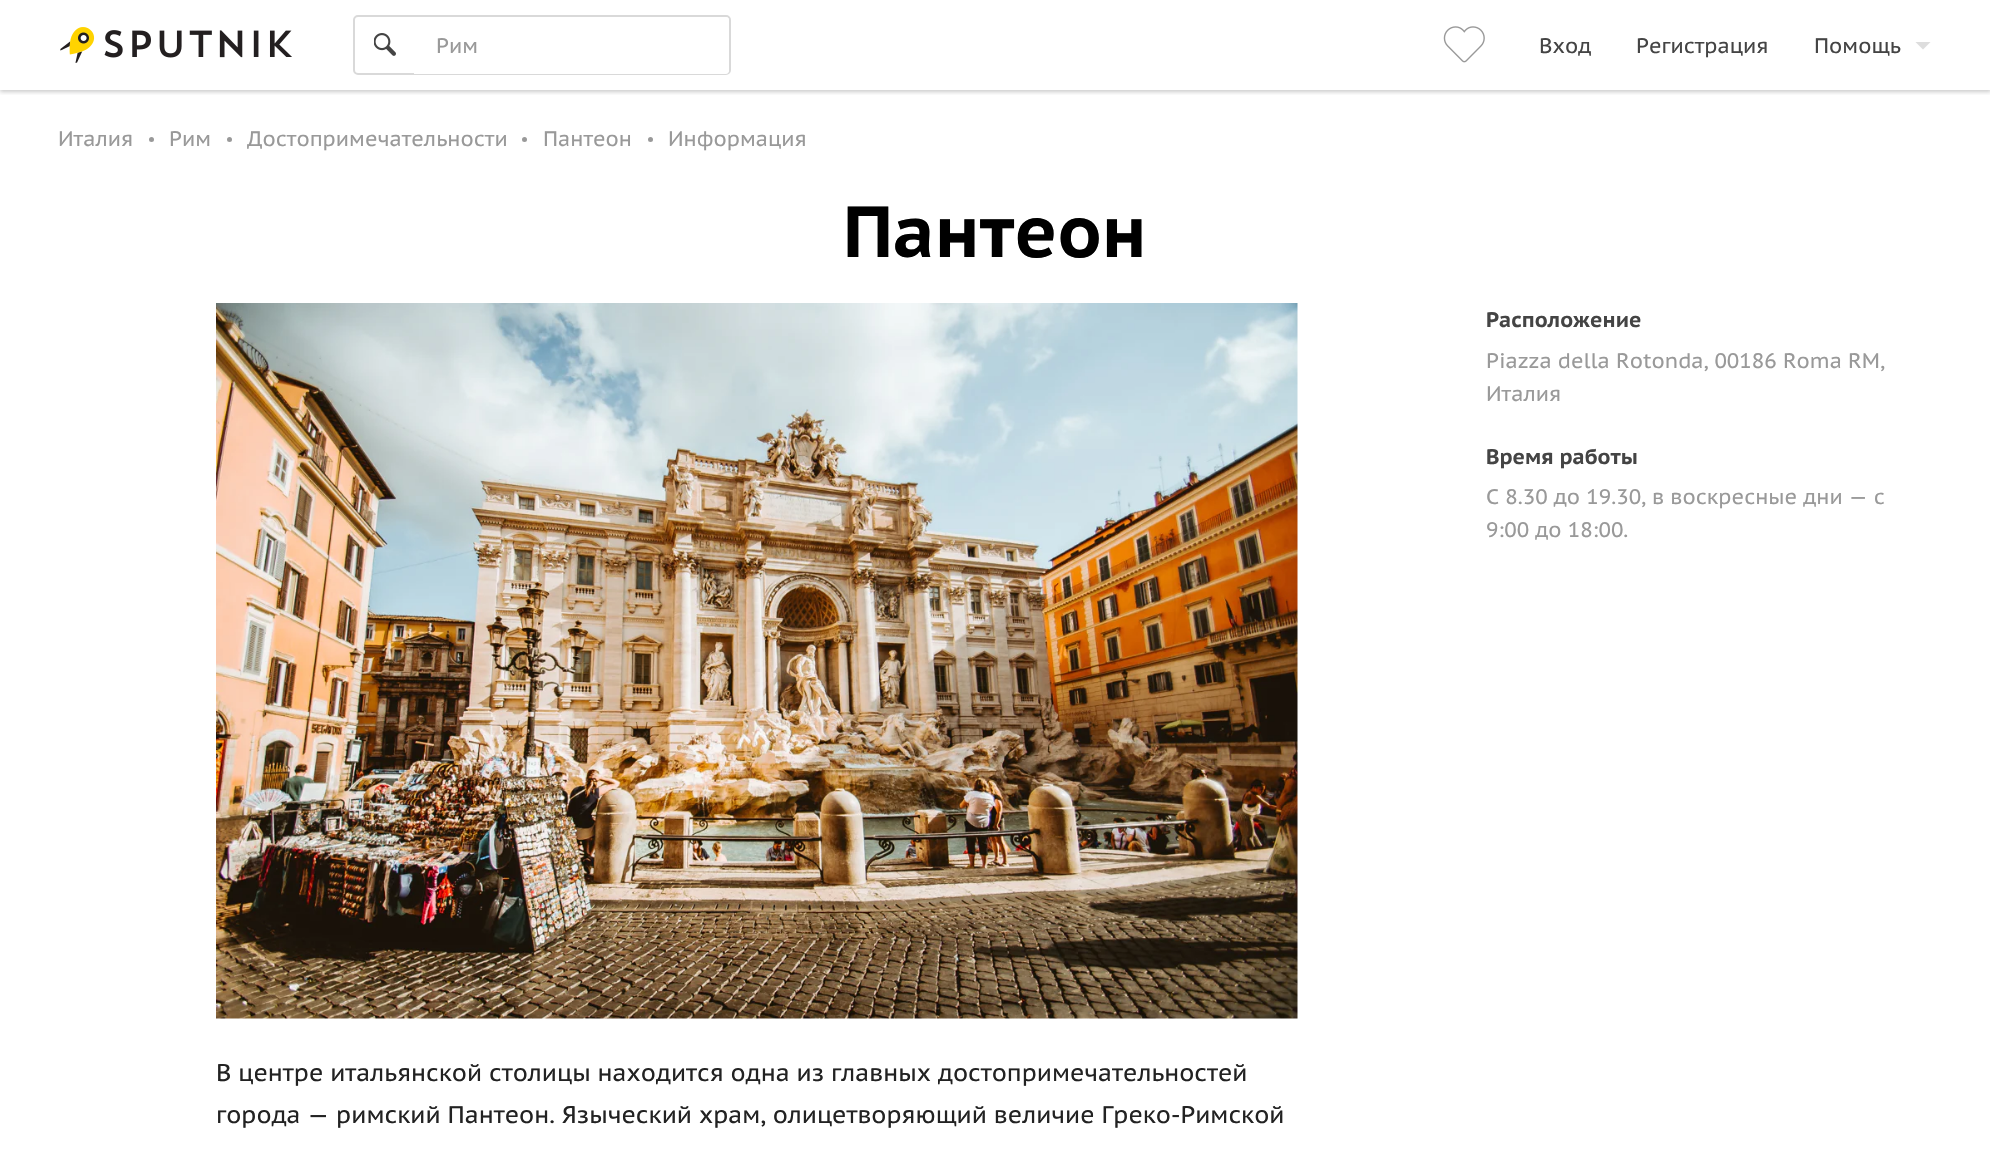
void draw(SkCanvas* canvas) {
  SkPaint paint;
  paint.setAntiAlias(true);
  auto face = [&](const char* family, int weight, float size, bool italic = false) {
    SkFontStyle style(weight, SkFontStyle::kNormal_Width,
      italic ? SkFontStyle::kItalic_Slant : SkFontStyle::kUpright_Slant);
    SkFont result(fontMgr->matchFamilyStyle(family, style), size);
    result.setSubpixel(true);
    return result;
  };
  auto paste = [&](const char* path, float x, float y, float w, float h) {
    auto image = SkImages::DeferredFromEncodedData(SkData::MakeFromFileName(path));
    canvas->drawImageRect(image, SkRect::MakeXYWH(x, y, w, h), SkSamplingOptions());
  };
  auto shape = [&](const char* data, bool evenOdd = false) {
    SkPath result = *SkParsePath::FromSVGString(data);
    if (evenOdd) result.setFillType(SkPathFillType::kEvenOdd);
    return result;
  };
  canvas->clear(0xffffffff);
  canvas->save();
  canvas->clipRect(SkRect::MakeXYWH(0, 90, 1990, 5));
  paint.setColor(0x33000000);
  paint.setMaskFilter(SkMaskFilter::MakeBlur(kNormal_SkBlurStyle, 2));
  canvas->drawRect(SkRect::MakeXYWH(0, 2, 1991, 90), paint);
  paint.setMaskFilter(nullptr);
  canvas->restore();
  paste("img/1.png", 60, 27, 232, 36);
  paste("img/2.png", 374, 33, 22, 23);
  paint.setStroke(true);
  paint.setStrokeWidth(2);
  paint.setColor(0xffd9d9d9);
  canvas->drawRoundRect(SkRect::MakeXYWH(354, 16, 376, 58), 4, 4, paint);
  paint.setStroke(false);
  paint.setColor(0xffffffff);
  canvas->drawPath(shape("M414 17H726C727.5 17 729 18.5 729 20V71C729 72.5 727.5 74 726 74H414Z"), paint);
  paste("img/3.png", 1443, 26, 42, 37);
  paint.setColor(0xffdddddd);
  canvas->drawPath(shape("M1915.5 42H1930.5L1923 49.5Z"), paint);
  paint.setColor(0xff999999);
  canvas->drawCircle(151.5f, 139.5f, 2.5f, paint);
  canvas->drawCircle(229.5f, 139.5f, 2.5f, paint);
  canvas->drawCircle(524.5f, 139.5f, 2.5f, paint);
  canvas->drawCircle(650.5f, 139.5f, 2.5f, paint);
  paste("img/4.png", 216, 303, 1082, 716);
  auto f0 = face("PT Sans Caption", 400, 21);
  canvas->drawString("Рим", 436, 53, f0, paint);
  paint.setColor(0xff444444);
  {
    const struct { const char* s; float x, y; } items[] = {
      {"Вход", 1539, 53},
      {"Регистрация", 1636, 53},
      {"Помощь", 1814, 53},
    };
    for (auto [s, x, y] : items) {
      canvas->drawString(s, x, y, f0, paint);
    }
  }
  paint.setColor(0xff999999);
  {
    const struct { const char* s; float x, y; } items[] = {
      {"Италия", 58, 146},
      {"Рим", 169, 146},
      {"Достопримечательности", 247, 146},
      {"Пантеон", 543, 146},
      {"Информация", 668, 146},
    };
    for (auto [s, x, y] : items) {
      canvas->drawString(s, x, y, f0, paint);
    }
  }
  auto f1 = face("PT Sans Caption", 700, 72);
  paint.setColor(0xff000000);
  canvas->drawString("Пантеон", 843, 257, f1, paint);
  auto f2 = face("PT Sans Caption", 700, 21);
  paint.setColor(0xff444444);
  canvas->drawString("Расположение", 1486, 327, f2, paint);
  paint.setColor(0xff999999);
  canvas->drawString("Piazza della Rotonda, 00186 Roma RM,", 1486, 368, f0, paint);
  canvas->drawString("Италия", 1486, 401, f0, paint);
  paint.setColor(0xff444444);
  canvas->drawString("Время работы", 1486, 464, f2, paint);
  paint.setColor(0xff999999);
  canvas->drawString("С 8.30 до 19.30, в воскресные дни — с", 1486, 504, f0, paint);
  canvas->drawString("9:00 до 18:00.", 1486, 537, f0, paint);
  auto f3 = face("PT Sans Caption", 400, 24);
  paint.setColor(0xff222222);
  canvas->drawString("В центре итальянской столицы находится одна из главных достопримечательностей", 216, 1081, f3, paint);
  canvas->drawString("города — римский Пантеон. Языческий храм, олицетворяющий величие Греко-Римской", 216, 1123, f3, paint);
}
